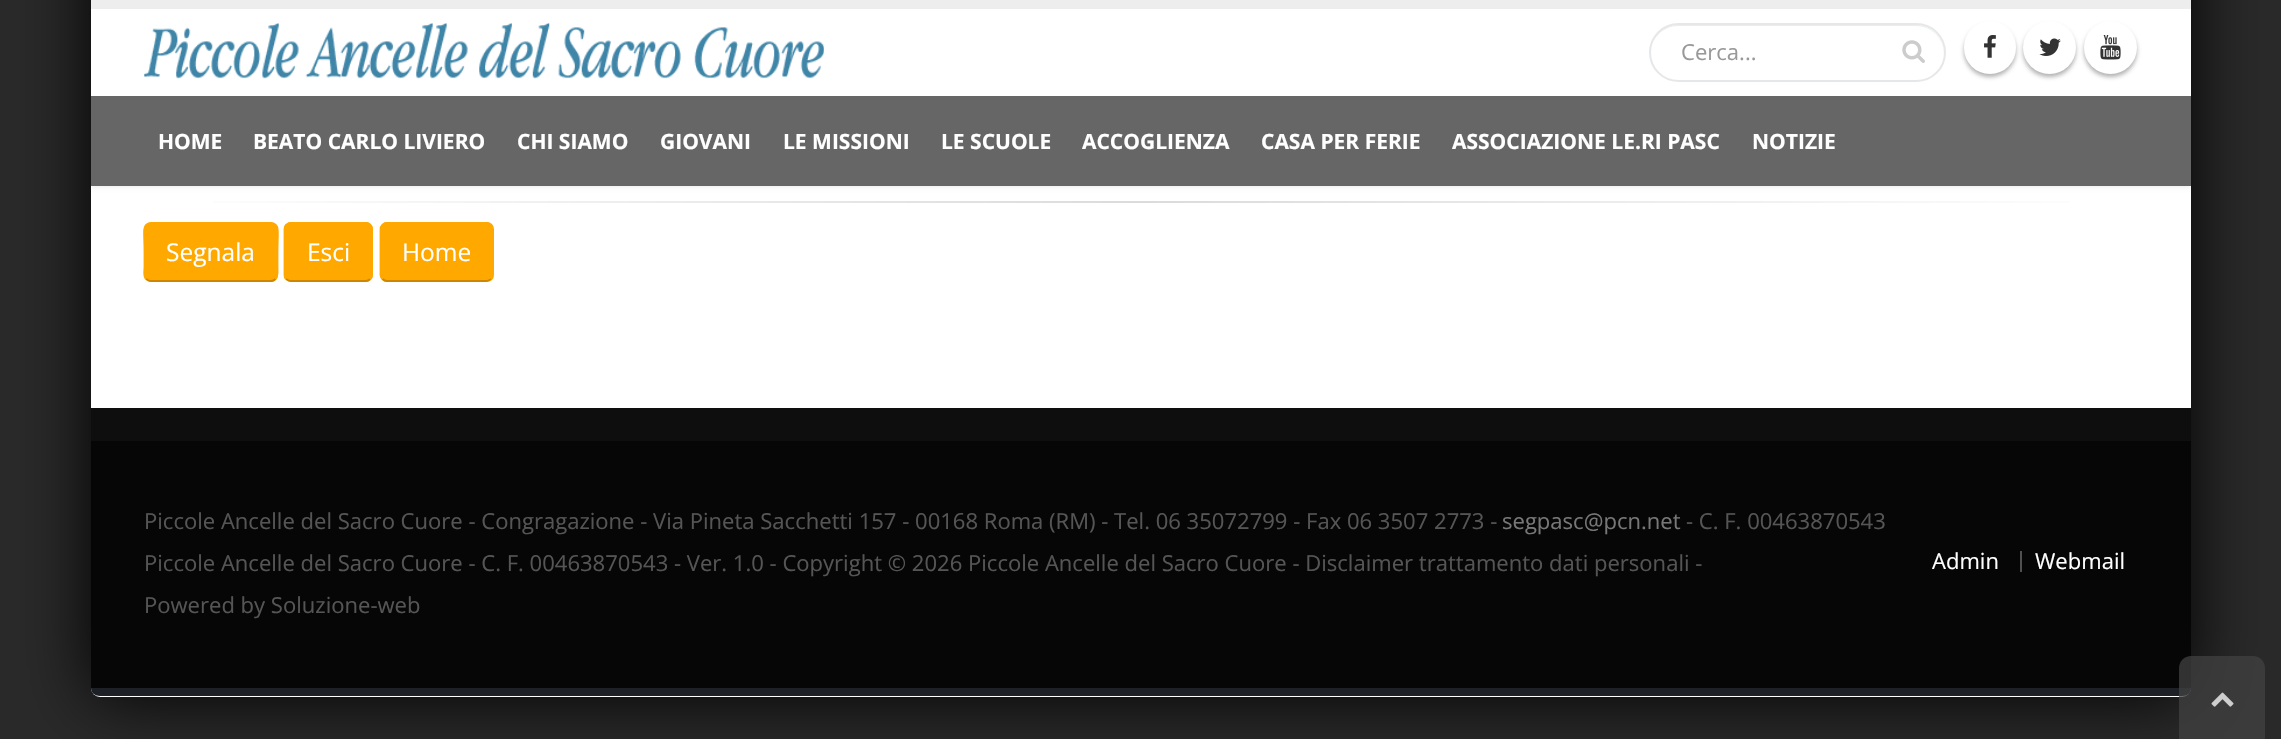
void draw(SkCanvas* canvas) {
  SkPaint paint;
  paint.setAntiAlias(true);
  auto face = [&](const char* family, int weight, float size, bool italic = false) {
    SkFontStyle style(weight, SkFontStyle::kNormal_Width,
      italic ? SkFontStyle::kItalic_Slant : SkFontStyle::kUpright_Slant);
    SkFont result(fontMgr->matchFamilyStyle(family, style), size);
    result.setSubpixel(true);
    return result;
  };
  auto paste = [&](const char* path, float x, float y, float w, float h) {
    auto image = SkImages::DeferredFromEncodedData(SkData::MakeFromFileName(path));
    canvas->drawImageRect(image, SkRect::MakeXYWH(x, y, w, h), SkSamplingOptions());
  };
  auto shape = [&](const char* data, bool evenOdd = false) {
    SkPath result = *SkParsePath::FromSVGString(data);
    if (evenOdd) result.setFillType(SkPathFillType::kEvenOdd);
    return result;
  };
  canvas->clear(0xff292929);
  paint.setColor(0xff000000);
  paint.setMaskFilter(SkMaskFilter::MakeBlur(kNormal_SkBlurStyle, 35));
  canvas->drawRoundRect(SkRect::MakeXYWH(91, -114, 2100, 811), 9, 9, paint);
  paint.setMaskFilter(nullptr);
  paint.setColor(0xffffffff);
  canvas->drawRoundRect(SkRect::MakeXYWH(91, -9, 2100, 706), 9, 9, paint);
  paint.setColor(0xff1d2127);
  canvas->drawPath(shape("M2182 696C2187 696 2191 693 2191 688H91C91 693 95 696 100 696Z"), paint);
  paint.setColor(0x1a000000);
  paint.setMaskFilter(SkMaskFilter::MakeBlur(kNormal_SkBlurStyle, 2.5f));
  canvas->drawRect(SkRect::MakeXYWH(91, 0, 2100, 186), paint);
  paint.setMaskFilter(nullptr);
  paint.setColor(0xffffffff);
  canvas->drawRect(SkRect::MakeXYWH(91, 9, 2100, 87), paint);
  paint.setColor(0xffededed);
  canvas->drawRect(SkRect::MakeXYWH(91, 0, 2100, 9), paint);
  paste("img/1.png", 144, 23, 680, 56);
  paint.setColor(0xffececec);
  canvas->drawPath(shape("M1678 26H1916C1932 26 1944 39 1944 54V53C1944 38 1931 25 1916 25H1678C1663 25 1650 38 1650 53V54C1650 39 1663 26 1678 26Z"), paint);
  paint.setStroke(true);
  paint.setStrokeWidth(2);
  paint.setColor(0xffe5e7e9);
  canvas->drawRoundRect(SkRect::MakeXYWH(1650, 24, 295, 57), 28.5f, 28.5f, paint);
  paste("img/2.png", 1902, 40, 23, 23);
  paint.setStroke(false);
  paint.setColor(0x4d000000);
  paint.setMaskFilter(SkMaskFilter::MakeBlur(kNormal_SkBlurStyle, 2));
  canvas->drawRoundRect(SkRect::MakeXYWH(1964, 25, 52, 52), 26, 26, paint);
  paint.setMaskFilter(nullptr);
  paint.setColor(0xffffffff);
  canvas->drawRoundRect(SkRect::MakeXYWH(1964, 21, 52, 53), 26, 26, paint);
  paste("img/3.png", 1984, 35, 12, 23);
  paint.setColor(0x4d000000);
  paint.setMaskFilter(SkMaskFilter::MakeBlur(kNormal_SkBlurStyle, 2));
  canvas->drawRoundRect(SkRect::MakeXYWH(2023, 25, 53, 52), 26, 26, paint);
  paint.setMaskFilter(nullptr);
  paint.setColor(0xffffffff);
  canvas->drawCircle(2049.5f, 47.5f, 26.5f, paint);
  paste("img/4.png", 2039, 38, 22, 18);
  paint.setColor(0x4d000000);
  paint.setMaskFilter(SkMaskFilter::MakeBlur(kNormal_SkBlurStyle, 2));
  canvas->drawRoundRect(SkRect::MakeXYWH(2084, 25, 53, 52), 26, 26, paint);
  paint.setMaskFilter(nullptr);
  paint.setColor(0xffffffff);
  canvas->drawCircle(2110.5f, 47.5f, 26.5f, paint);
  paste("img/5.png", 2100, 35, 21, 25);
  paint.setColor(0xff666666);
  canvas->drawRect(SkRect::MakeXYWH(91, 96, 2100, 90), paint);
  {
    const SkColor colors[] = {0xffffffff, 0xffdbdbdb, 0xffffffff};
    const float stops[] = {0, 0.5f, 1};
    const SkPoint ends[] = {{144, 202}, {2139, 202}};
    paint.setShader(SkGradientShader::MakeLinear(ends, colors, stops, 3, SkTileMode::kClamp));
    paint.setAlpha(255);
  }
  canvas->drawRect(SkRect::MakeXYWH(213, 201, 1857, 2), paint);
  paint.setShader(nullptr);
  paint.setColor(0xffffa800);
  canvas->drawRoundRect(SkRect::MakeXYWH(144, 222, 134, 60), 7, 7, paint);
  paint.setStroke(true);
  paint.setStrokeWidth(1.8f);
  paint.setColor(0xffcc8600);
  canvas->drawPath(shape("M275.5 279C274.5 280 273 281 271 281H150.5C149 281 147.5 280 146 279"), paint);
  paint.setColor(0xffffa800);
  canvas->drawPath(shape("M146 279C143 276 144.5 270.5 144.5 267V252C144.5 220 138.5 223 170.5 223H251C283 223 277.5 220 277.5 252V267C277.5 270.5 278.5 276 275.5 279"), paint);
  paint.setStroke(false);
  canvas->drawRoundRect(SkRect::MakeXYWH(284, 222, 89, 60), 7, 7, paint);
  paint.setStroke(true);
  paint.setColor(0xffcc8600);
  canvas->drawPath(shape("M370 279C369 280 367.5 281 366 281H290.5C289 281 287.5 280 286 279"), paint);
  paint.setColor(0xffffa800);
  canvas->drawPath(shape("M286 279C285 278 284.5 276.5 284.5 275V229C284.5 227.5 285 226 286 225C287.5 224 289 223 290.5 223H366C367.5 223 369 224 370 225C371 226 372 227.5 372 229V275C372 276.5 371 278 370 279"), paint);
  paint.setStroke(false);
  canvas->drawRoundRect(SkRect::MakeXYWH(380, 222, 114, 60), 7, 7, paint);
  paint.setStroke(true);
  paint.setColor(0xffcc8600);
  canvas->drawPath(shape("M491 279C489.5 280 488 281 486.5 281H387C385 281 383.5 280 382.5 279"), paint);
  paint.setColor(0xffffa800);
  canvas->drawPath(shape("M382.5 279C381.5 278 380.5 276.5 380.5 275V229C380.5 227.5 381.5 226 382.5 225C383.5 224 385 223 387 223H486.5C488 223 489.5 224 491 225C492 226 492.5 227.5 492.5 229V275C492.5 276.5 492 278 491 279"), paint);
  paint.setStroke(false);
  {
    const struct { float x, y, w, h; SkColor color; } items[] = {
      {91, 408, 2100, 33, 0xff0e0e0e},
      {91, 441, 2100, 247, 0xff060606},
      {2020, 551, 2, 21, 0xff505050},
    };
    for (auto [x, y, w, h, color] : items) {
      paint.setColor(color);
      canvas->drawRect(SkRect::MakeXYWH(x, y, w, h), paint);
    }
  }
  paint.setColor(0xbf404040);
  canvas->drawPath(shape("M2191 656H2253C2259.5 656 2265 661.5 2265 668V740H2179V668C2179 661.5 2184.5 656 2191 656Z"), paint);
  paste("img/6.png", 2211, 692, 23, 15);
  auto f0 = face("Open Sans", 400, 22.05f);
  paint.setColor(0xff999999);
  canvas->drawString("Cerca...", 1681, 60, f0, paint);
  auto f1 = face("Open Sans", 700, 21);
  paint.setColor(0xffffffff);
  {
    const struct { const char* s; float x, y; } items[] = {
      {"HOME", 158, 149},
      {"BEATO CARLO LIVIERO", 253, 149},
      {"CHI SIAMO", 517, 149},
      {"GIOVANI", 660, 149},
      {"LE MISSIONI", 783, 149},
      {"LE SCUOLE", 941, 149},
      {"ACCOGLIENZA", 1082, 149},
      {"CASA PER FERIE", 1261, 149},
      {"ASSOCIAZIONE LE.RI PASC", 1452, 149},
      {"NOTIZIE", 1752, 149},
    };
    for (auto [s, x, y] : items) {
      canvas->drawString(s, x, y, f1, paint);
    }
  }
  auto f2 = face("Open Sans", 400, 24.5f);
  {
    const struct { const char* s; float x, y; } items[] = {
      {"Segnala", 166, 261},
      {"Esci", 307, 261},
      {"Home", 402, 261},
    };
    for (auto [s, x, y] : items) {
      canvas->drawString(s, x, y, f2, paint);
    }
  }
  paint.setColor(0xff555555);
  canvas->drawString("Piccole Ancelle del Sacro Cuore - Congragazione - Via Pineta Sacchetti 157 - 00168 Roma (RM) - Tel. 06 35072799 - Fax 06 3507 2773 -", 144, 529, f0, paint);
  paint.setColor(0xff777777);
  canvas->drawString("segpasc@pcn.net", 1502, 529, f0, paint);
  paint.setColor(0xff555555);
  {
    const struct { const char* s; float x, y; } items[] = {
      {"- C. F. 00463870543", 1686, 529},
      {"Piccole Ancelle del Sacro Cuore - C. F. 00463870543 - Ver. 1.0 - Copyright © 2026 Piccole Ancelle del Sacro Cuore - Disclaimer trattamento dati personali -", 144, 571},
      {"Powered by Soluzione-web", 144, 613},
    };
    for (auto [s, x, y] : items) {
      canvas->drawString(s, x, y, f0, paint);
    }
  }
  paint.setColor(0xffffffff);
  canvas->drawString("Admin", 1932, 569, f0, paint);
  canvas->drawString("Webmail", 2035, 569, f0, paint);
}
